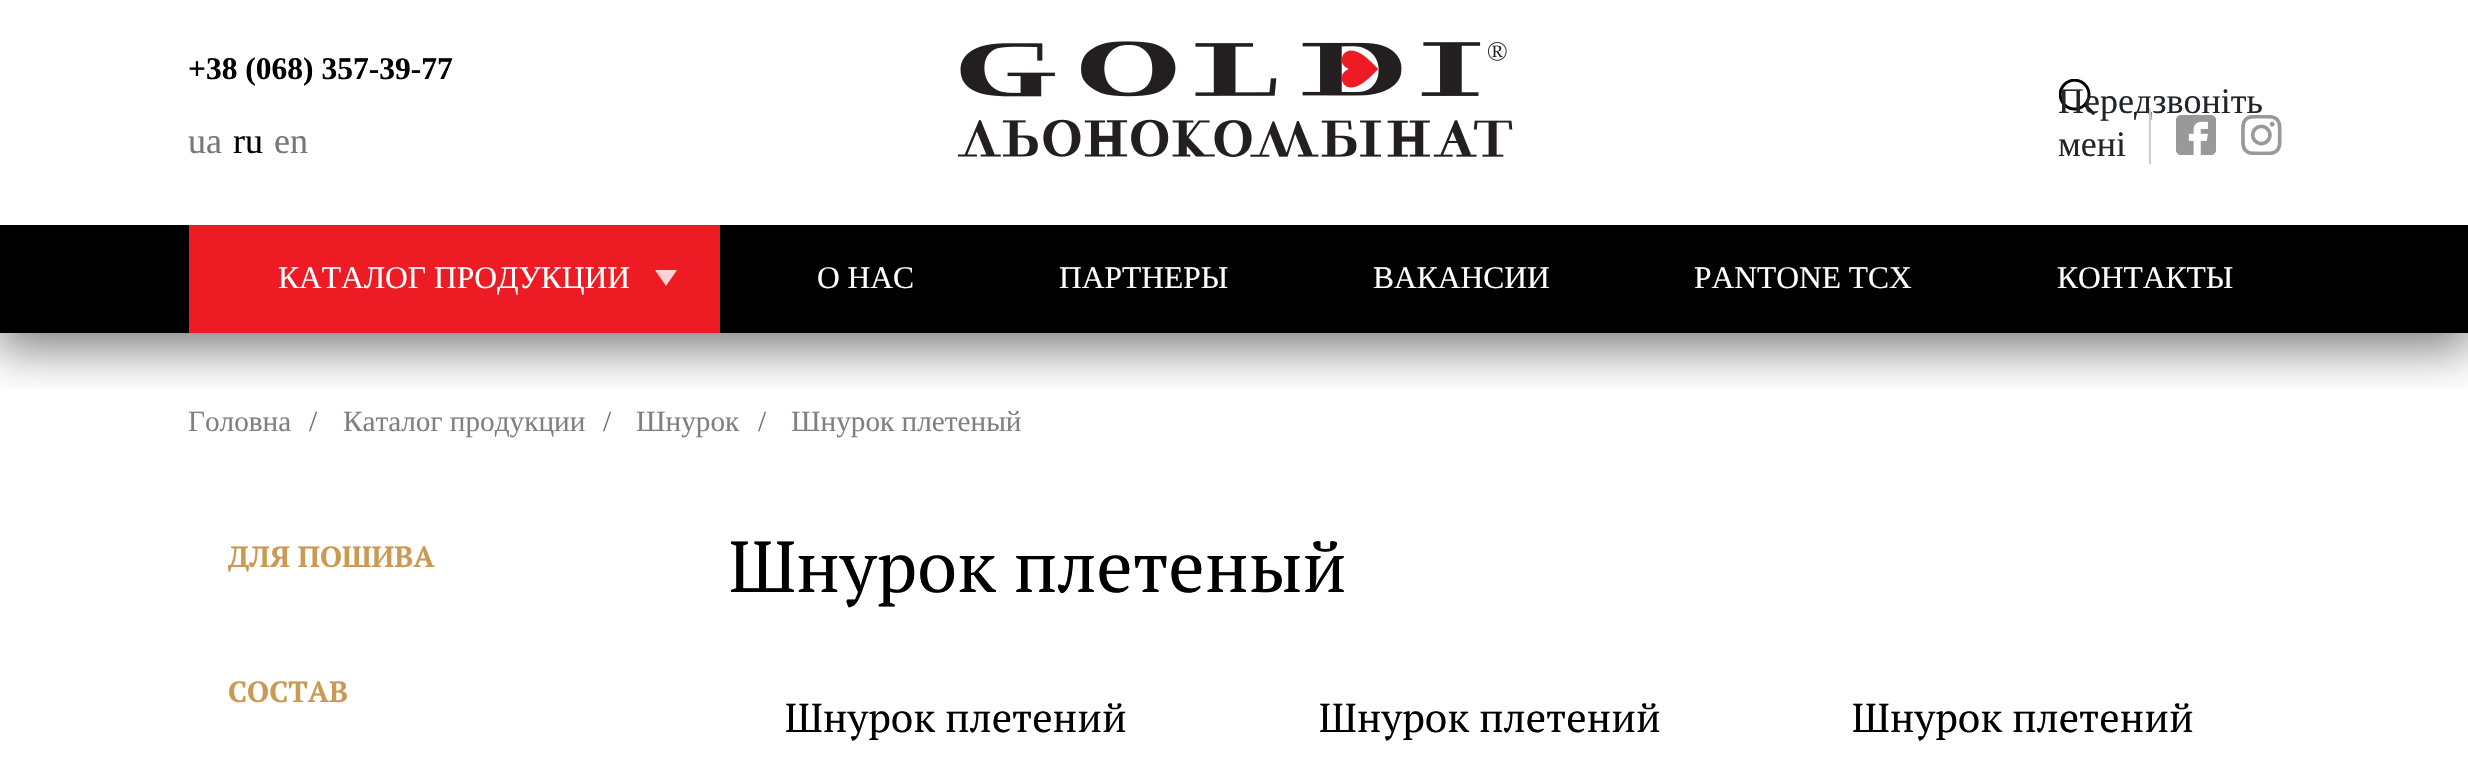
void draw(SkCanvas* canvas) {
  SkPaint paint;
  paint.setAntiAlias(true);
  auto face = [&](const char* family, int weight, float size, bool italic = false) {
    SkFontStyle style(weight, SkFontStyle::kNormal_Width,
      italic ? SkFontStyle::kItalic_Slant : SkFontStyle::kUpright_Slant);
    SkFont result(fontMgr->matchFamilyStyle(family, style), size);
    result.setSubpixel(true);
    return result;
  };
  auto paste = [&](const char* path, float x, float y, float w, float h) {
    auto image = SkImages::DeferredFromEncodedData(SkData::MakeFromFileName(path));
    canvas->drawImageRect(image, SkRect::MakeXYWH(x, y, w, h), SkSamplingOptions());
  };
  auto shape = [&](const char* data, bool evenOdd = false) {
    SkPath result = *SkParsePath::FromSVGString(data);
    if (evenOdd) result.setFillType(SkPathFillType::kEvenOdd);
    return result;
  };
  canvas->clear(0xffffffff);
  canvas->save();
  canvas->clipRect(SkRect::MakeXYWH(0, 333, 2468, 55));
  paint.setColor(0x80000000);
  paint.setMaskFilter(SkMaskFilter::MakeBlur(kNormal_SkBlurStyle, 22.5f));
  canvas->drawRect(SkRect::MakeXYWH(-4, 7, 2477, 342), paint);
  paint.setMaskFilter(nullptr);
  canvas->restore();
  paste("img/1.png", 957, 41, 556, 116);
  paste("img/2.png", 2059, 79, 36, 36);
  paint.setColor(0xff000000);
  canvas->drawRect(SkRect::MakeXYWH(0, 225, 2468, 108), paint);
  paint.setColor(0xffed1c24);
  canvas->drawRect(SkRect::MakeXYWH(189, 225, 531, 108), paint);
  paint.setColor(0xfffbd2d3);
  canvas->drawPath(shape("M655 270H677L666 286Z"), paint);
  auto f0 = face("Liberation Serif", 700, 31.5f);
  paint.setColor(0xff000000);
  canvas->drawString("+38 (068) 357-39-77", 188, 79, f0, paint);
  auto f1 = face("Liberation Serif", 400, 36);
  paint.setColor(0xff777777);
  canvas->drawString("ua", 188, 153, f1, paint);
  paint.setColor(0xff000000);
  canvas->drawString("ru", 233, 153, f1, paint);
  paint.setColor(0xff777777);
  canvas->drawString("en", 274, 153, f1, paint);
  paint.setColor(0xff212529);
  canvas->drawString("Передзвоніть", 2058, 113, f1, paint);
  canvas->drawString("мені", 2058, 156, f1, paint);
  paint.setColor(0xffcccccc);
  canvas->drawRect(SkRect::MakeXYWH(2149, 108, 2, 56), paint);
  paste("img/3.png", 2176, 115, 40, 40);
  paste("img/4.png", 2241, 115, 41, 40);
  auto f2 = face("Liberation Serif", 400, 31.5f);
  paint.setColor(0xffffffff);
  {
    const struct { const char* s; float x, y; } items[] = {
      {"КАТАЛОГ ПРОДУКЦИИ", 278, 288},
      {"О НАС", 817, 288},
      {"ПАРТНЕРЫ", 1059, 288},
      {"ВАКАНСИИ", 1373, 288},
      {"PANTONE TCX", 1694, 288},
      {"КОНТАКТЫ", 2057, 288},
    };
    for (auto [s, x, y] : items) {
      canvas->drawString(s, x, y, f2, paint);
    }
  }
  auto f3 = face("Liberation Serif", 400, 29.25f);
  paint.setColor(0xff808080);
  canvas->drawString("Головна", 188, 431, f3, paint);
  paint.setColor(0xff6c757d);
  canvas->drawString("/", 309, 431, f3, paint);
  paint.setColor(0xff808080);
  canvas->drawString("Каталог продукции", 343, 431, f3, paint);
  paint.setColor(0xff6c757d);
  canvas->drawString("/", 603, 431, f3, paint);
  paint.setColor(0xff808080);
  canvas->drawString("Шнурок", 636, 431, f3, paint);
  paint.setColor(0xff6c757d);
  canvas->drawString("/", 758, 431, f3, paint);
  paint.setColor(0xff808080);
  canvas->drawString("Шнурок плетеный", 791, 431, f3, paint);
  auto f4 = face("PT Serif", 700, 29.25f);
  paint.setColor(0xffcc9952);
  canvas->drawString("ДЛЯ ПОШИВА", 228, 567, f4, paint);
  canvas->drawString("СОСТАВ", 228, 702, f4, paint);
  auto f5 = face("PT Serif", 400, 72);
  paint.setColor(0xff000000);
  canvas->drawString("Шнурок плетеный", 729, 592, f5, paint);
  auto f6 = face("PT Serif", 400, 40.5f);
  {
    const struct { const char* s; float x, y; } items[] = {
      {"Шнурок плетений", 785, 732},
      {"Шнурок плетений", 1319, 732},
      {"Шнурок плетений", 1852, 732},
    };
    for (auto [s, x, y] : items) {
      canvas->drawString(s, x, y, f6, paint);
    }
  }
}
